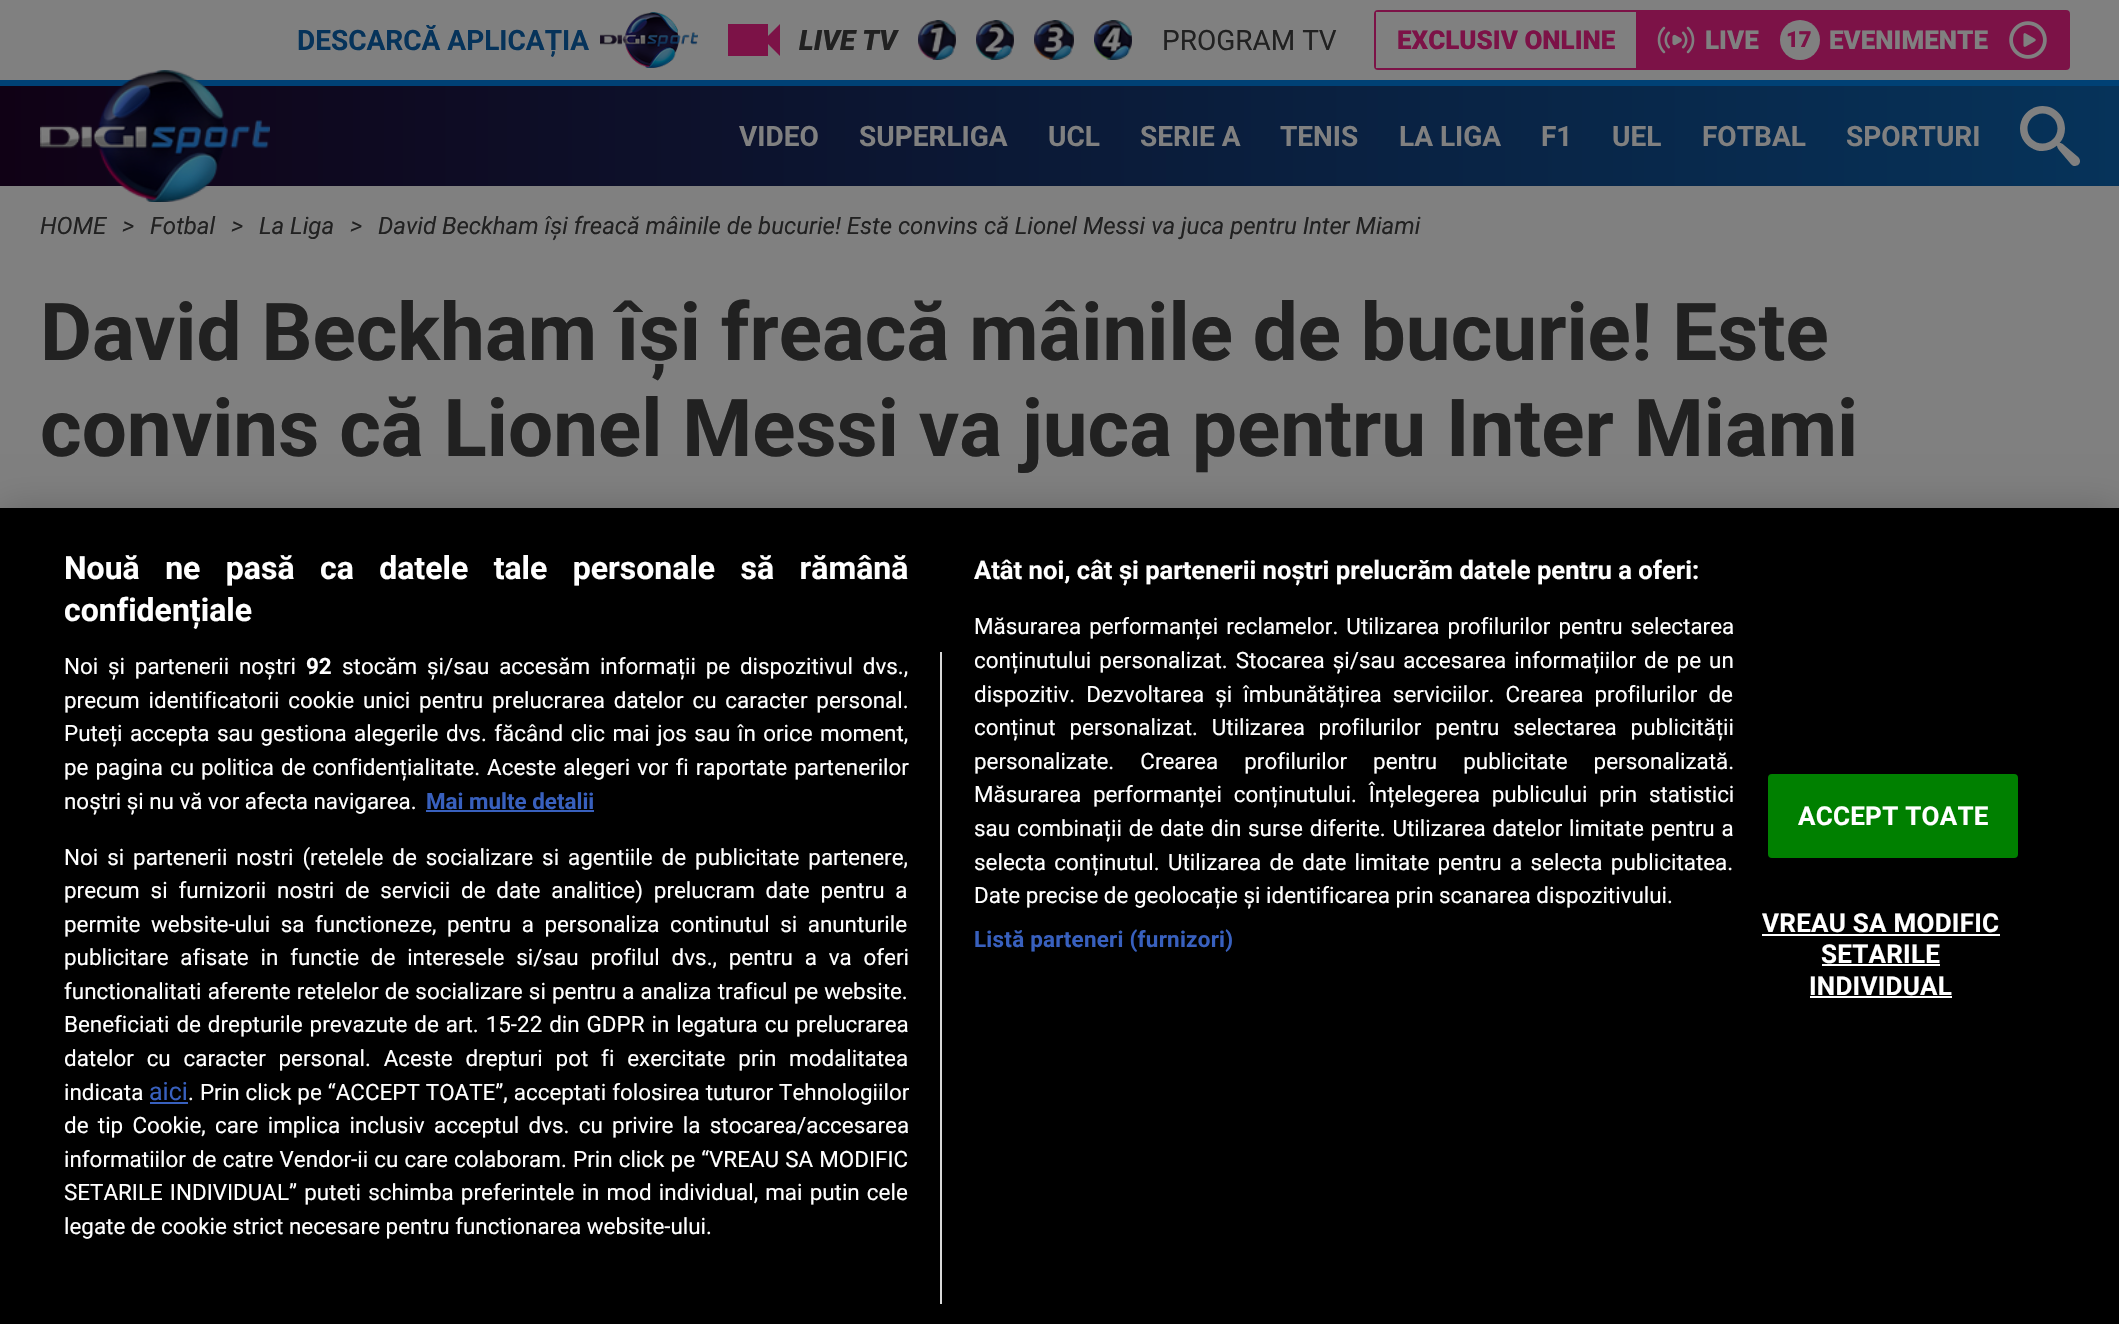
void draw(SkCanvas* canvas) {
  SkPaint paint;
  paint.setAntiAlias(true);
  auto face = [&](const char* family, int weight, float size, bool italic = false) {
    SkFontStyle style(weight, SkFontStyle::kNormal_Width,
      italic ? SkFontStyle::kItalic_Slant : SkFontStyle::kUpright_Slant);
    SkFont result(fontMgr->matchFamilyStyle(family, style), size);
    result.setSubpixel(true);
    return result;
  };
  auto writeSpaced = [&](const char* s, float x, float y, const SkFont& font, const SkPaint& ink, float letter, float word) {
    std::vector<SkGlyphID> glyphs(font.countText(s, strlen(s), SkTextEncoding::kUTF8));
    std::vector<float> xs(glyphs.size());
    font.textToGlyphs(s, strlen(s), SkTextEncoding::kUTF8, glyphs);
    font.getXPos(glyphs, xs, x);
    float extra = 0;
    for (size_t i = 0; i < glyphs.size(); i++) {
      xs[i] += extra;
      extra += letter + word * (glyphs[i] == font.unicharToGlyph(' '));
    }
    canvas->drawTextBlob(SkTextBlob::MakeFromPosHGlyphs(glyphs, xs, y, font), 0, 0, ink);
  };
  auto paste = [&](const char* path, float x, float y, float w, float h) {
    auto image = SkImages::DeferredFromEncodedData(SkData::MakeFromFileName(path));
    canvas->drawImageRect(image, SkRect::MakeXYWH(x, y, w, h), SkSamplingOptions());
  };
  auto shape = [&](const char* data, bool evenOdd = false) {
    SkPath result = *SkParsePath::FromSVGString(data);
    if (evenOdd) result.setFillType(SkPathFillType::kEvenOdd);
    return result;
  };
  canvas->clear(0xff808080);
  paste("img/1.png", 600, 12, 98, 56);
  paint.setColor(0xff7c1247);
  canvas->drawRect(SkRect::MakeXYWH(728, 24, 40, 32), paint);
  canvas->drawPath(shape("M780 24V56L764 40Z"), paint);
  paste("img/2.png", 918, 20, 38, 40);
  paste("img/3.png", 976, 20, 38, 40);
  paste("img/4.png", 1034, 20, 40, 40);
  paste("img/5.png", 1094, 20, 38, 40);
  paint.setStroke(true);
  paint.setStrokeWidth(2);
  canvas->drawRoundRect(SkRect::MakeXYWH(1375, 11, 694, 58), 3, 3, paint);
  paint.setStroke(false);
  paint.setColor(0xff808080);
  canvas->drawRect(SkRect::MakeXYWH(1376, 12, 2, 56), paint);
  paint.setColor(0xff7c1247);
  canvas->drawRect(SkRect::MakeXYWH(1636, 12, 432, 56), paint);
  paste("img/6.png", 1657, 26, 38, 28);
  paint.setColor(0xff808080);
  canvas->drawCircle(1800, 40, 20, paint);
  paste("img/7.png", 2009, 21, 38, 38);
  paint.setColor(0xff004175);
  canvas->drawRect(SkRect::MakeXYWH(0, 80, 2119, 6), paint);
  {
    const SkColor colors[] = {0xff100115, 0xff06335a};
    const float stops[] = {0, 1};
    const SkPoint ends[] = {{0, 136}, {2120, 136}};
    paint.setShader(SkGradientShader::MakeLinear(ends, colors, stops, 2, SkTileMode::kClamp));
    paint.setAlpha(255);
  }
  canvas->drawRect(SkRect::MakeXYWH(0, 86, 2119, 100), paint);
  paste("img/8.png", 40, 70, 230, 132);
  paste("img/9.png", 2020, 106, 60, 60);
  paint.setShader(nullptr);
  paint.setColor(0x33000000);
  paint.setMaskFilter(SkMaskFilter::MakeBlur(kNormal_SkBlurStyle, 18));
  canvas->drawRect(SkRect::MakeXYWH(0, 508, 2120, 816), paint);
  paint.setMaskFilter(nullptr);
  {
    const struct { float x, y, w, h; SkColor color; } items[] = {
      {0, 508, 2119, 816, 0xff000000},
      {940, 652, 2, 652, 0xffd8d8d8},
      {426, 810, 168, 2, 0xff3860be},
      {150, 1102, 38, 2, 0xff3860be},
    };
    for (auto [x, y, w, h, color] : items) {
      paint.setColor(color);
      canvas->drawRect(SkRect::MakeXYWH(x, y, w, h), paint);
    }
  }
  paint.setColor(0xff008000);
  canvas->drawRoundRect(SkRect::MakeXYWH(1769, 775, 248, 82), 3, 3, paint);
  paint.setStroke(true);
  canvas->drawRoundRect(SkRect::MakeXYWH(1769, 775, 248, 82), 3, 3, paint);
  paint.setStroke(false);
  {
    const struct { float x, y, w, h; SkColor color; } items[] = {
      {1762, 934, 238, 2, 0xffffffff},
      {1822, 964, 118, 2, 0xffffffff},
      {1810, 996, 142, 2, 0xffffffff},
    };
    for (auto [x, y, w, h, color] : items) {
      paint.setColor(color);
      canvas->drawRect(SkRect::MakeXYWH(x, y, w, h), paint);
    }
  }
  auto f0 = face("Roboto", 700, 28);
  paint.setColor(0xff06335a);
  canvas->drawString("DESCARCĂ APLICAȚIA", 297, 50, f0, paint);
  auto f1 = face("Roboto", 900, 28, true);
  paint.setColor(0xff212121);
  canvas->drawString("LIVE TV", 799, 50, f1, paint);
  auto f2 = face("Roboto", 400, 28);
  canvas->drawString("PROGRAM TV", 1162, 50, f2, paint);
  auto f3 = face("Roboto", 900, 26);
  paint.setColor(0xff7c1247);
  canvas->drawString("EXCLUSIV ONLINE", 1397, 49, f3, paint);
  paint.setColor(0xff808080);
  canvas->drawString("LIVE", 1705, 49, f3, paint);
  auto f4 = face("Roboto", 900, 22);
  paint.setColor(0xff7c1247);
  canvas->drawString("17", 1786, 47, f4, paint);
  paint.setColor(0xff808080);
  canvas->drawString("EVENIMENTE", 1829, 49, f3, paint);
  {
    const struct { const char* s; float x, y; } items[] = {
      {"VIDEO", 739, 146},
      {"SUPERLIGA", 859, 146},
      {"UCL", 1048, 146},
      {"SERIE A", 1140, 146},
      {"TENIS", 1280, 146},
      {"LA LIGA", 1399, 146},
      {"F1", 1541, 146},
      {"UEL", 1612, 146},
      {"FOTBAL", 1702, 146},
      {"SPORTURI", 1846, 146},
    };
    for (auto [s, x, y] : items) {
      canvas->drawString(s, x, y, f0, paint);
    }
  }
  auto f5 = face("Roboto", 400, 24, true);
  paint.setColor(0xff212121);
  {
    const struct { const char* s; float x, y; } items[] = {
      {"HOME", 40, 234},
      {">", 122, 234},
      {"Fotbal", 150, 234},
      {">", 231, 234},
      {"La Liga", 259, 234},
      {">", 350, 234},
      {"David Beckham își freacă mâinile de bucurie! Este convins că Lionel Messi va juca pentru Inter Miami", 378, 234},
    };
    for (auto [s, x, y] : items) {
      canvas->drawString(s, x, y, f5, paint);
    }
  }
  auto f6 = face("Roboto", 700, 80);
  canvas->drawString("David Beckham își freacă mâinile de bucurie! Este", 40, 360, f6, paint);
  canvas->drawString("convins că Lionel Messi va juca pentru Inter Miami", 40, 456, f6, paint);
  auto f7 = face("Roboto", 700, 32);
  paint.setColor(0xffffffff);
  writeSpaced("Nouă ne pasă ca datele tale personale să rămână", 64, 579, f7, paint, 0, 17.5f);
  canvas->drawString("confidențiale", 64, 621, f7, paint);
  auto f8 = face("Roboto", 700, 25.6f);
  canvas->drawString("Atât noi, cât și partenerii noștri prelucrăm datele pentru a oferi:", 974, 579, f8, paint);
  auto f9 = face("Roboto", 400, 22.4f);
  writeSpaced("Măsurarea performanței reclamelor. Utilizarea profilurilor pentru selectarea", 974, 634, f9, paint, 0, 2.5f);
  writeSpaced("conținutului personalizat. Stocarea și/sau accesarea informațiilor de pe un", 974, 668, f9, paint, 0, 2.5f);
  writeSpaced("dispozitiv. Dezvoltarea și îmbunătățirea serviciilor. Crearea profilurilor de", 974, 702, f9, paint, 0, 5.5f);
  writeSpaced("conținut personalizat. Utilizarea profilurilor pentru selectarea publicității", 974, 735, f9, paint, 0, 8.25f);
  writeSpaced("personalizate. Crearea profilurilor pentru publicitate personalizată.", 974, 769, f9, paint, 0, 20.5f);
  writeSpaced("Măsurarea performanței conținutului. Înțelegerea publicului prin statistici", 974, 802, f9, paint, 0, 6.25f);
  writeSpaced("sau combinații de date din surse diferite. Utilizarea datelor limitate pentru a", 974, 836, f9, paint, 0, 1.25f);
  writeSpaced("selecta conținutul. Utilizarea de date limitate pentru a selecta publicitatea.", 974, 870, f9, paint, 0, 2.75f);
  canvas->drawString("Date precise de geolocație și identificarea prin scanarea dispozitivului.", 974, 903, f9, paint);
  auto f10 = face("Roboto", 700, 22.4f);
  paint.setColor(0xff3860be);
  writeSpaced("Listă parteneri (furnizori)", 974, 947, f10, paint, 0.25f, 0);
  paint.setColor(0xffffffff);
  writeSpaced("Noi și partenerii noștri", 64, 674, f9, paint, 0, 4.25f);
  canvas->drawString("92", 306, 674, f10, paint);
  writeSpaced("stocăm și/sau accesăm informații pe dispozitivul dvs.,", 342, 674, f9, paint, 0, 4.25f);
  writeSpaced("precum identificatorii cookie unici pentru prelucrarea datelor cu caracter personal.", 64, 708, f9, paint, 0, 3.25f);
  writeSpaced("Puteți accepta sau gestiona alegerile dvs. făcând clic mai jos sau în orice moment,", 64, 741, f9, paint, 0, 1.9f);
  writeSpaced("pe pagina cu politica de confidențialitate. Aceste alegeri vor fi raportate partenerilor", 64, 775, f9, paint, 0, 1.5f);
  canvas->drawString("noștri și nu vă vor afecta navigarea.", 64, 809, f9, paint);
  paint.setColor(0xff3860be);
  canvas->drawString("Mai multe detalii", 426, 809, f10, paint);
  paint.setColor(0xffffffff);
  writeSpaced("Noi si partenerii nostri (retelele de socializare si agentiile de publicitate partenere,", 64, 865, f9, paint, 0, 3.4f);
  writeSpaced("precum si furnizorii nostri de servicii de date analitice) prelucram date pentru a", 64, 898, f9, paint, 0, 5.25f);
  writeSpaced("permite website-ului sa functioneze, pentru a personaliza continutul si anunturile", 64, 932, f9, paint, 0, 5);
  writeSpaced("publicitare afisate in functie de interesele si/sau profilul dvs., pentru a va oferi", 64, 965, f9, paint, 0, 6.25f);
  writeSpaced("functionalitati aferente retelelor de socializare si pentru a analiza traficul pe website.", 64, 999, f9, paint, 0, 0.6f);
  writeSpaced("Beneficiati de drepturile prevazute de art. 15-22 din GDPR in legatura cu prelucrarea", 64, 1032, f9, paint, 0, 1.4f);
  writeSpaced("datelor cu caracter personal. Aceste drepturi pot fi exercitate prin modalitatea", 64, 1066, f9, paint, 0, 7.25f);
  canvas->drawString("indicata", 64, 1100, f9, paint);
  auto f11 = face("Roboto", 400, 25);
  paint.setColor(0xff3860be);
  canvas->drawString("aici", 149, 1100, f11, paint);
  paint.setColor(0xffffffff);
  writeSpaced(". Prin click pe “ACCEPT TOATE”, acceptati folosirea tuturor Tehnologiilor", 188, 1100, f9, paint, 0, 0.5f);
  writeSpaced("de tip Cookie, care implica inclusiv acceptul dvs. cu privire la stocarea/accesarea", 64, 1133, f9, paint, 0, 3.75f);
  writeSpaced("informatiilor de catre Vendor-ii cu care colaboram. Prin click pe “VREAU SA MODIFIC", 64, 1167, f9, paint, 0, 0.6f);
  writeSpaced("SETARILE INDIVIDUAL” puteti schimba preferintele in mod individual, mai putin cele", 64, 1200, f9, paint, 0, 1.6f);
  canvas->drawString("legate de cookie strict necesare pentru functionarea website-ului.", 64, 1234, f9, paint);
  auto f12 = face("Roboto", 700, 26);
  {
    const struct { const char* s; float x, y; } items[] = {
      {"ACCEPT TOATE", 1798, 825},
      {"VREAU SA MODIFIC", 1762, 932},
      {"SETARILE", 1821, 963},
      {"INDIVIDUAL", 1809, 995},
    };
    for (auto [s, x, y] : items) {
      writeSpaced(s, x, y, f12, paint, 0.25f, 0);
    }
  }
}
